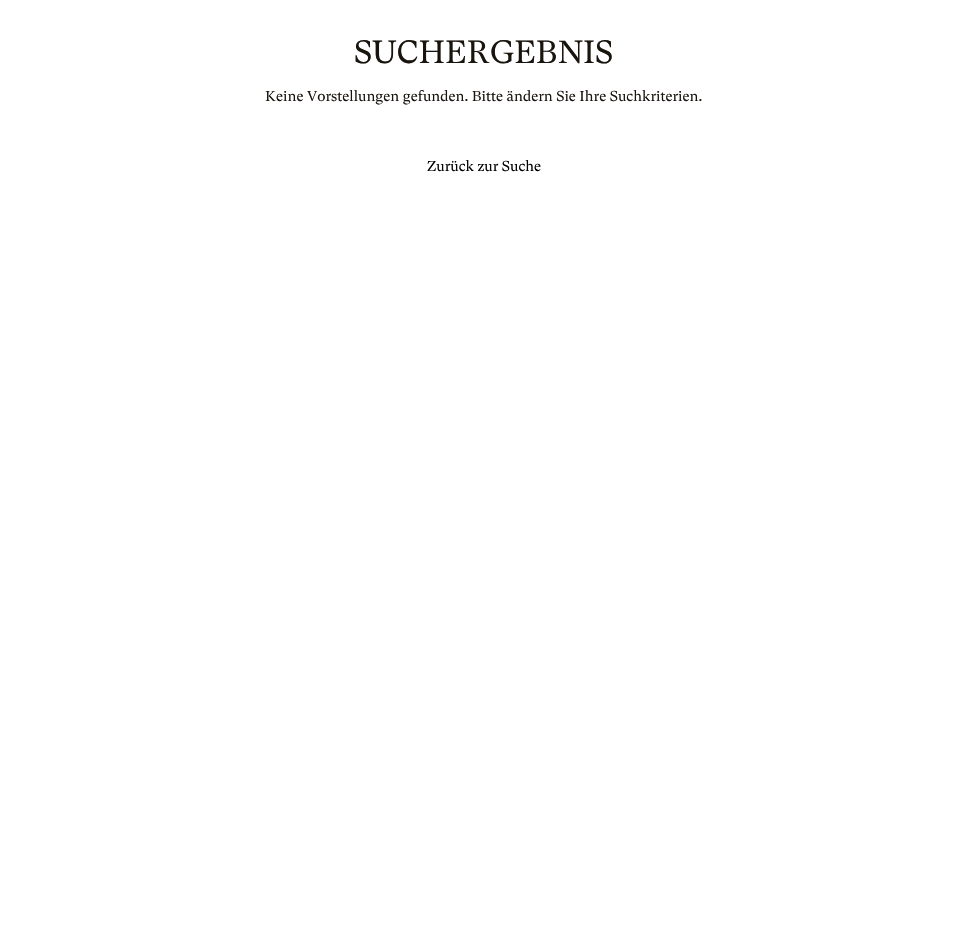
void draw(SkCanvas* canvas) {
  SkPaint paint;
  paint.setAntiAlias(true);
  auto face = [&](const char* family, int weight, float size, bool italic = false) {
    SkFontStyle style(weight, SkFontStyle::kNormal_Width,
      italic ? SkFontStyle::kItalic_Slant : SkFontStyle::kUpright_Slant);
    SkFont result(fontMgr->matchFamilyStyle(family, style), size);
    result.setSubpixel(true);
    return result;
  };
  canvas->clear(0xffffffff);
  auto f0 = face("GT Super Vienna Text", 400, 32);
  paint.setColor(0xff19140e);
  canvas->drawString("SUCHERGEBNIS", 354, 63, f0, paint);
  auto f1 = face("GT Super Vienna Text", 400, 14.4f);
  canvas->drawString("Keine Vorstellungen gefunden. Bitte ändern Sie Ihre Suchkriterien.", 265, 101, f1, paint);
  paint.setColor(0xff000000);
  canvas->drawString("Zurück zur Suche", 427, 171, f1, paint);
}
